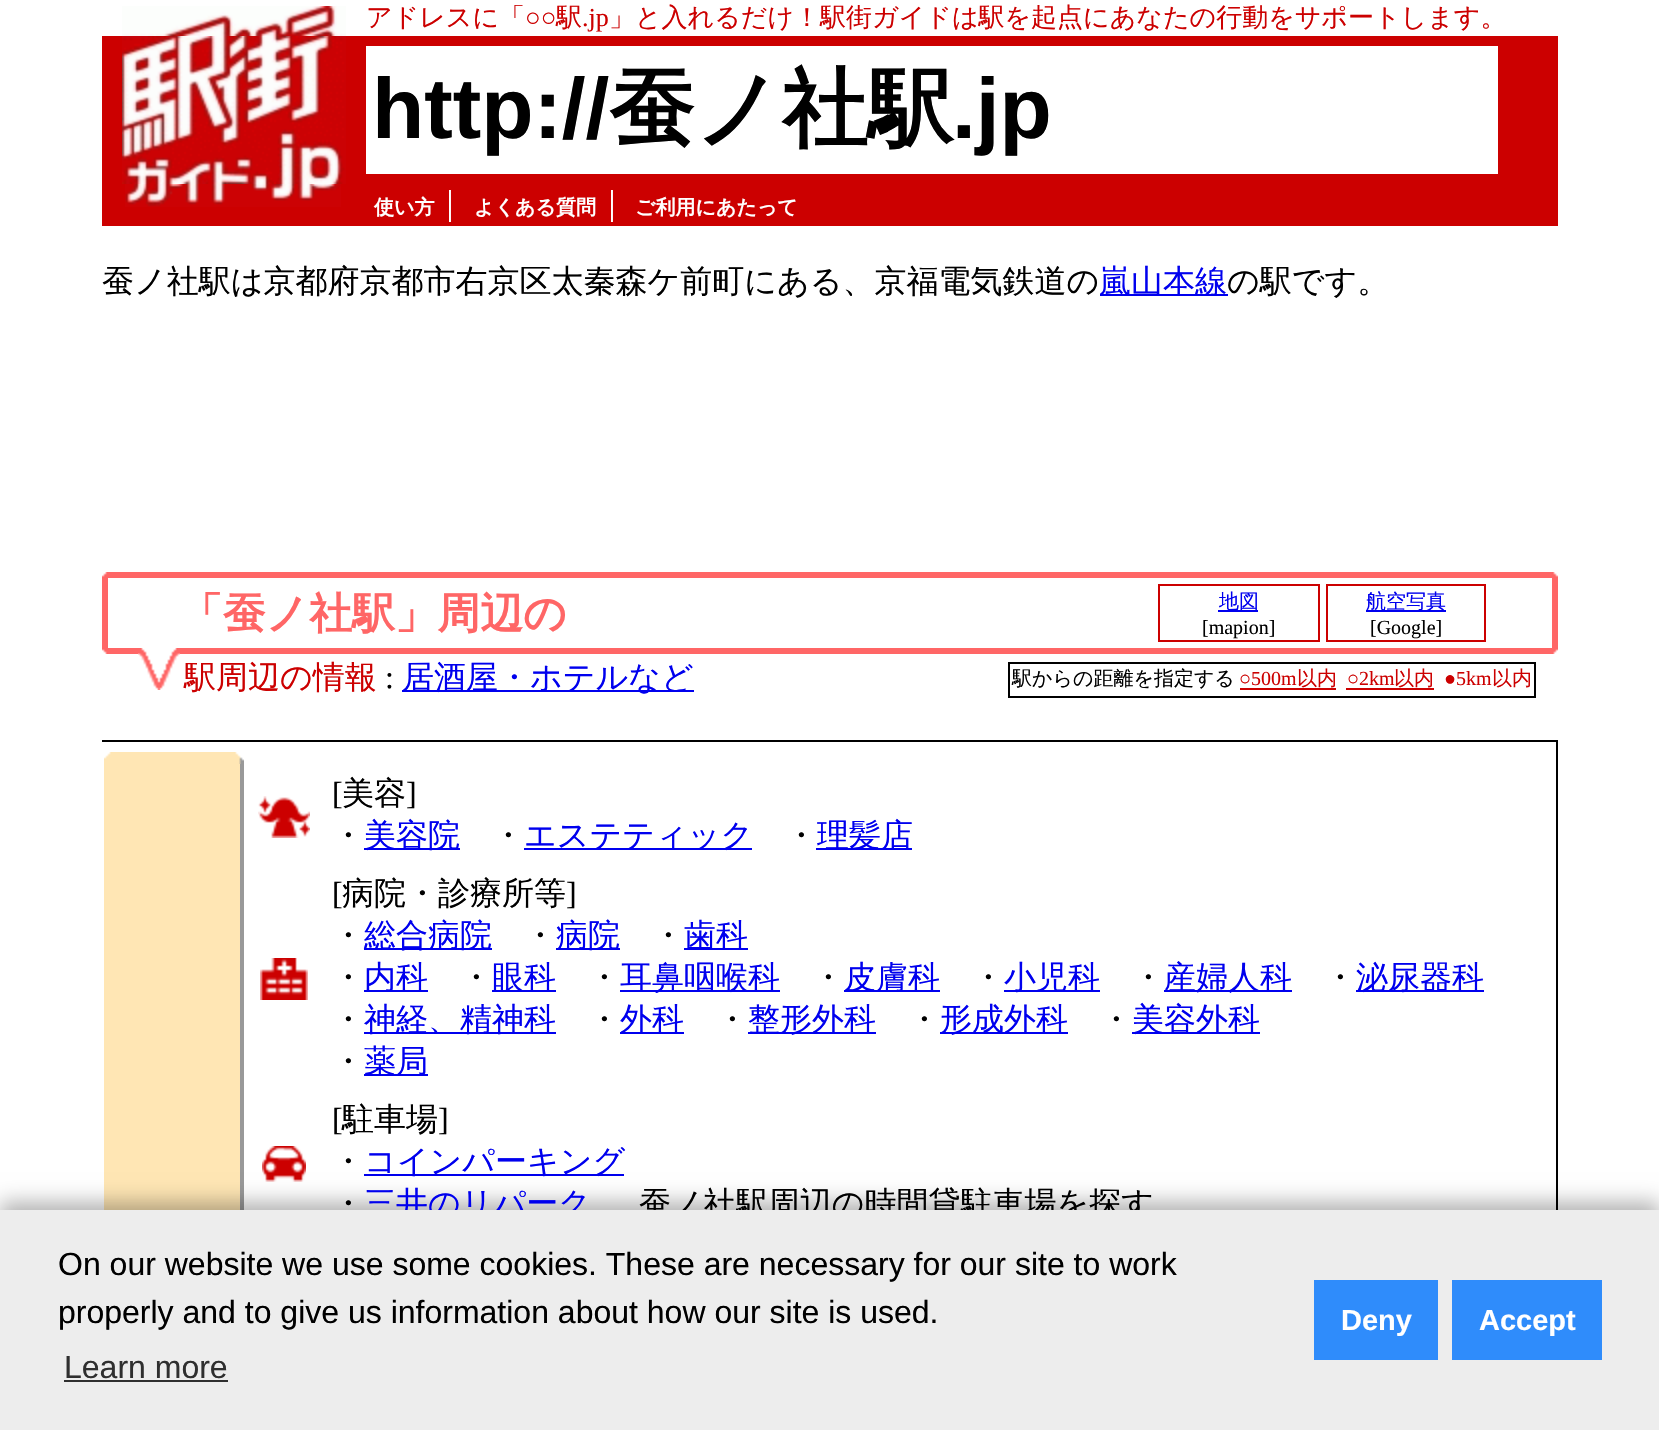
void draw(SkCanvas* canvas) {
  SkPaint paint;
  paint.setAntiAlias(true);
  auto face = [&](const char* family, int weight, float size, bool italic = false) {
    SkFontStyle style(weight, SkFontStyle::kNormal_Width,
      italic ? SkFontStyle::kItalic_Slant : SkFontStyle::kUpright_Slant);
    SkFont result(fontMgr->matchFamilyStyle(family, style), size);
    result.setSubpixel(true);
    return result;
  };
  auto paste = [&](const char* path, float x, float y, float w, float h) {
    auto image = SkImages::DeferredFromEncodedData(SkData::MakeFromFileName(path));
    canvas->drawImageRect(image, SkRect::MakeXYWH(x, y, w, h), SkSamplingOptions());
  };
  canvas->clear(0xffffffff);
  paste("img/1.png", 122, 6, 224, 30);
  paint.setColor(0xffcc0000);
  canvas->drawRect(SkRect::MakeXYWH(102, 36, 20, 190), paint);
  paste("img/2.png", 122, 36, 224, 148);
  {
    const struct { float x, y, w, h; SkColor color; } items[] = {
      {346, 36, 1212, 148, 0xffcc0000},
      {366, 46, 1132, 128, 0xffffffff},
      {122, 184, 1436, 42, 0xffcc0000},
    };
    for (auto [x, y, w, h, color] : items) {
      paint.setColor(color);
      canvas->drawRect(SkRect::MakeXYWH(x, y, w, h), paint);
    }
  }
  paste("img/3.png", 125, 184, 216, 23);
  paint.setColor(0xff0000ee);
  canvas->drawRect(SkRect::MakeXYWH(1100, 294, 128, 2), paint);
  paste("img/4.png", 102, 572, 6, 6);
  paint.setColor(0xffff6666);
  canvas->drawRect(SkRect::MakeXYWH(108, 572, 1444, 6), paint);
  paste("img/5.png", 1552, 572, 6, 6);
  canvas->drawRect(SkRect::MakeXYWH(102, 578, 6, 70), paint);
  paint.setStroke(true);
  paint.setStrokeWidth(2);
  paint.setColor(0xffcc0000);
  canvas->drawRect(SkRect::MakeXYWH(1159, 585, 160, 56), paint);
  paint.setStroke(false);
  paint.setColor(0xff0000ee);
  canvas->drawRect(SkRect::MakeXYWH(1218, 610, 40, 2), paint);
  paint.setStroke(true);
  paint.setColor(0xffcc0000);
  canvas->drawRect(SkRect::MakeXYWH(1327, 585, 158, 56), paint);
  paint.setStroke(false);
  paint.setColor(0xff0000ee);
  canvas->drawRect(SkRect::MakeXYWH(1366, 610, 80, 2), paint);
  paint.setColor(0xffff6666);
  canvas->drawRect(SkRect::MakeXYWH(1552, 578, 6, 70), paint);
  paste("img/6.png", 102, 648, 6, 6);
  canvas->drawRect(SkRect::MakeXYWH(108, 648, 30, 6), paint);
  paste("img/7.png", 138, 648, 42, 42);
  canvas->drawRect(SkRect::MakeXYWH(180, 648, 1372, 6), paint);
  paste("img/8.png", 1552, 648, 6, 6);
  paint.setColor(0xff0000ee);
  canvas->drawRect(SkRect::MakeXYWH(402, 690, 292, 2), paint);
  paint.setStroke(true);
  paint.setColor(0xff000000);
  canvas->drawRect(SkRect::MakeXYWH(1009, 663, 526, 34), paint);
  paint.setStroke(false);
  {
    const struct { float x, y, w, h; SkColor color; } items[] = {
      {1240, 688, 96, 2, 0xffcc0000},
      {1346, 688, 88, 2, 0xffcc0000},
      {102, 740, 1456, 2, 0xff000000},
    };
    for (auto [x, y, w, h, color] : items) {
      paint.setColor(color);
      canvas->drawRect(SkRect::MakeXYWH(x, y, w, h), paint);
    }
  }
  paste("img/9.png", 104, 752, 140, 12);
  {
    const struct { float x, y, w, h; SkColor color; } items[] = {
      {1556, 742, 2, 468, 0xff000000},
      {104, 764, 136, 446, 0xffffe6b4},
      {240, 764, 4, 446, 0xff999999},
    };
    for (auto [x, y, w, h, color] : items) {
      paint.setColor(color);
      canvas->drawRect(SkRect::MakeXYWH(x, y, w, h), paint);
    }
  }
  paste("img/10.png", 258, 796, 52, 42);
  {
    const struct { float x, y, w, h; SkColor color; } items[] = {
      {364, 848, 96, 2, 0xff0000ee},
      {524, 848, 228, 2, 0xff0000ee},
      {816, 848, 96, 2, 0xff0000ee},
    };
    for (auto [x, y, w, h, color] : items) {
      paint.setColor(color);
      canvas->drawRect(SkRect::MakeXYWH(x, y, w, h), paint);
    }
  }
  paste("img/11.png", 260, 958, 48, 42);
  {
    const struct { float x, y, w, h; SkColor color; } items[] = {
      {364, 948, 128, 2, 0xff0000ee},
      {556, 948, 64, 2, 0xff0000ee},
      {684, 948, 64, 2, 0xff0000ee},
      {364, 990, 64, 2, 0xff0000ee},
      {492, 990, 64, 2, 0xff0000ee},
      {620, 990, 160, 2, 0xff0000ee},
      {844, 990, 96, 2, 0xff0000ee},
      {1004, 990, 96, 2, 0xff0000ee},
      {1164, 990, 128, 2, 0xff0000ee},
      {1356, 990, 128, 2, 0xff0000ee},
      {364, 1032, 192, 2, 0xff0000ee},
      {620, 1032, 64, 2, 0xff0000ee},
      {748, 1032, 128, 2, 0xff0000ee},
      {940, 1032, 128, 2, 0xff0000ee},
      {1132, 1032, 128, 2, 0xff0000ee},
      {364, 1074, 64, 2, 0xff0000ee},
    };
    for (auto [x, y, w, h, color] : items) {
      paint.setColor(color);
      canvas->drawRect(SkRect::MakeXYWH(x, y, w, h), paint);
    }
  }
  paste("img/12.png", 262, 1146, 44, 36);
  canvas->drawRect(SkRect::MakeXYWH(364, 1174, 260, 2), paint);
  paint.setColor(0x4d000000);
  paint.setMaskFilter(SkMaskFilter::MakeBlur(kNormal_SkBlurStyle, 10));
  canvas->drawRect(SkRect::MakeXYWH(0, 1202, 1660, 220), paint);
  paint.setMaskFilter(nullptr);
  auto f0 = face("WenQuanYi Zen Hei", 500, 26);
  paint.setColor(0xffcc0000);
  canvas->drawString("アドレスに「", 366, 26, f0, paint);
  auto f1 = face("Liberation Serif", 400, 26);
  canvas->drawString("○○", 525, 26, f1, paint);
  canvas->drawString("駅", 556, 26, f0, paint);
  canvas->drawString(".jp", 582, 26, f1, paint);
  canvas->drawString("」と入れるだけ！駅街ガイドは駅を起点にあなたの行動をサポートします。", 609, 26, f0, paint);
  auto f2 = face("Liberation Sans", 700, 85.5f);
  paint.setColor(0xff000000);
  canvas->drawString("http://", 372, 138, f2, paint);
  auto f3 = face("WenQuanYi Zen Hei", 700, 85.5f);
  canvas->drawString("蚕ノ社駅", 609, 138, f3, paint);
  canvas->drawString(".jp", 952, 138, f2, paint);
  auto f4 = face("WenQuanYi Zen Hei", 700, 20);
  paint.setColor(0xffffffff);
  canvas->drawString("使い方", 374, 214, f4, paint);
  auto f5 = face("WenQuanYi Zen Hei", 500, 32);
  canvas->drawString("｜", 434, 214, f5, paint);
  canvas->drawString("よくある質問", 474, 214, f4, paint);
  canvas->drawString("｜", 596, 214, f5, paint);
  canvas->drawString("ご利用にあたって", 635, 214, f4, paint);
  paint.setColor(0xff000000);
  canvas->drawString("蚕ノ社駅は京都府京都市右京区太秦森ケ前町にある、京福電気鉄道の", 102, 292, f5, paint);
  paint.setColor(0xff0000ee);
  canvas->drawString("嵐山本線", 1099, 292, f5, paint);
  paint.setColor(0xff000000);
  canvas->drawString("の駅です。", 1227, 292, f5, paint);
  auto f6 = face("WenQuanYi Zen Hei", 700, 42.75f);
  paint.setColor(0xffff6666);
  canvas->drawString("「蚕ノ社駅」周辺の", 180, 628, f6, paint);
  auto f7 = face("WenQuanYi Zen Hei", 500, 20);
  paint.setColor(0xff0000ee);
  canvas->drawString("地図", 1219, 608, f7, paint);
  auto f8 = face("Liberation Serif", 400, 20);
  paint.setColor(0xff000000);
  canvas->drawString("[mapion]", 1202, 634, f8, paint);
  paint.setColor(0xff0000ee);
  canvas->drawString("航空写真", 1366, 608, f7, paint);
  paint.setColor(0xff000000);
  canvas->drawString("[Google]", 1370, 634, f8, paint);
  paint.setColor(0xffcc0000);
  canvas->drawString("駅周辺の情報", 184, 688, f5, paint);
  auto f9 = face("Liberation Serif", 400, 32);
  paint.setColor(0xff000000);
  canvas->drawString(":", 385, 688, f9, paint);
  paint.setColor(0xff0000ee);
  canvas->drawString("居酒屋・ホテルなど", 402, 688, f5, paint);
  paint.setColor(0xff000000);
  canvas->drawString("駅からの距離を指定する", 1012, 685, f7, paint);
  paint.setColor(0xffcc0000);
  canvas->drawString("○500m", 1239, 685, f8, paint);
  canvas->drawString("以内", 1297, 685, f7, paint);
  canvas->drawString("○2km", 1347, 685, f8, paint);
  canvas->drawString("以内", 1394, 685, f7, paint);
  canvas->drawString("●5km", 1444, 685, f8, paint);
  canvas->drawString("以内", 1492, 685, f7, paint);
  paint.setColor(0xff000000);
  canvas->drawString("[", 332, 804, f9, paint);
  canvas->drawString("美容", 342, 804, f5, paint);
  canvas->drawString("]", 406, 804, f9, paint);
  canvas->drawString("・", 332, 846, f5, paint);
  paint.setColor(0xff0000ee);
  canvas->drawString("美容院", 364, 846, f5, paint);
  paint.setColor(0xff000000);
  canvas->drawString("・", 492, 846, f5, paint);
  paint.setColor(0xff0000ee);
  canvas->drawString("エステティック", 524, 846, f5, paint);
  paint.setColor(0xff000000);
  canvas->drawString("・", 785, 846, f5, paint);
  paint.setColor(0xff0000ee);
  canvas->drawString("理髪店", 817, 846, f5, paint);
  paint.setColor(0xff000000);
  canvas->drawString("[", 332, 904, f9, paint);
  canvas->drawString("病院・診療所等", 342, 904, f5, paint);
  canvas->drawString("]", 566, 904, f9, paint);
  canvas->drawString("・", 332, 946, f5, paint);
  paint.setColor(0xff0000ee);
  canvas->drawString("総合病院", 364, 946, f5, paint);
  paint.setColor(0xff000000);
  canvas->drawString("・", 524, 946, f5, paint);
  paint.setColor(0xff0000ee);
  canvas->drawString("病院", 556, 946, f5, paint);
  paint.setColor(0xff000000);
  canvas->drawString("・", 652, 946, f5, paint);
  paint.setColor(0xff0000ee);
  canvas->drawString("歯科", 684, 946, f5, paint);
  paint.setColor(0xff000000);
  canvas->drawString("・", 332, 988, f5, paint);
  paint.setColor(0xff0000ee);
  canvas->drawString("内科", 364, 988, f5, paint);
  paint.setColor(0xff000000);
  canvas->drawString("・", 460, 988, f5, paint);
  paint.setColor(0xff0000ee);
  canvas->drawString("眼科", 492, 988, f5, paint);
  paint.setColor(0xff000000);
  canvas->drawString("・", 588, 988, f5, paint);
  paint.setColor(0xff0000ee);
  canvas->drawString("耳鼻咽喉科", 620, 988, f5, paint);
  paint.setColor(0xff000000);
  canvas->drawString("・", 812, 988, f5, paint);
  paint.setColor(0xff0000ee);
  canvas->drawString("皮膚科", 844, 988, f5, paint);
  paint.setColor(0xff000000);
  canvas->drawString("・", 972, 988, f5, paint);
  paint.setColor(0xff0000ee);
  canvas->drawString("小児科", 1004, 988, f5, paint);
  paint.setColor(0xff000000);
  canvas->drawString("・", 1132, 988, f5, paint);
  paint.setColor(0xff0000ee);
  canvas->drawString("産婦人科", 1164, 988, f5, paint);
  paint.setColor(0xff000000);
  canvas->drawString("・", 1324, 988, f5, paint);
  paint.setColor(0xff0000ee);
  canvas->drawString("泌尿器科", 1356, 988, f5, paint);
  paint.setColor(0xff000000);
  canvas->drawString("・", 332, 1030, f5, paint);
  paint.setColor(0xff0000ee);
  canvas->drawString("神経、精神科", 364, 1030, f5, paint);
  paint.setColor(0xff000000);
  canvas->drawString("・", 588, 1030, f5, paint);
  paint.setColor(0xff0000ee);
  canvas->drawString("外科", 620, 1030, f5, paint);
  paint.setColor(0xff000000);
  canvas->drawString("・", 716, 1030, f5, paint);
  paint.setColor(0xff0000ee);
  canvas->drawString("整形外科", 748, 1030, f5, paint);
  paint.setColor(0xff000000);
  canvas->drawString("・", 908, 1030, f5, paint);
  paint.setColor(0xff0000ee);
  canvas->drawString("形成外科", 940, 1030, f5, paint);
  paint.setColor(0xff000000);
  canvas->drawString("・", 1100, 1030, f5, paint);
  paint.setColor(0xff0000ee);
  canvas->drawString("美容外科", 1132, 1030, f5, paint);
  paint.setColor(0xff000000);
  canvas->drawString("・", 332, 1072, f5, paint);
  paint.setColor(0xff0000ee);
  canvas->drawString("薬局", 364, 1072, f5, paint);
  paint.setColor(0xff000000);
  canvas->drawString("[", 332, 1130, f9, paint);
  canvas->drawString("駐車場", 342, 1130, f5, paint);
  canvas->drawString("]", 438, 1130, f9, paint);
  canvas->drawString("・", 332, 1172, f5, paint);
  paint.setColor(0xff0000ee);
  canvas->drawString("コインパーキング", 364, 1172, f5, paint);
  paint.setColor(0xff000000);
  canvas->drawString("・", 332, 1214, f5, paint);
  paint.setColor(0xff0000ee);
  canvas->drawString("三井のリパーク", 364, 1214, f5, paint);
  paint.setColor(0xff000000);
  canvas->drawString("蚕ノ社駅周辺の時間貸駐車場を探す", 639, 1214, f5, paint);
  paint.setColor(0xffededed);
  canvas->drawRect(SkRect::MakeXYWH(0, 1210, 1659, 220), paint);
  auto f10 = face("Liberation Sans", 400, 32);
  paint.setColor(0xff000000);
  canvas->drawString("On our website we use some cookies. These are necessary for our site to work", 58, 1275, f10, paint);
  canvas->drawString("properly and to give us information about how our site is used.", 58, 1323, f10, paint);
  paint.setColor(0xff2f2f2f);
  canvas->drawString("Learn more", 64, 1378, f10, paint);
  canvas->drawRect(SkRect::MakeXYWH(64, 1380, 164, 2), paint);
  paint.setColor(0xff2f8cfb);
  canvas->drawRect(SkRect::MakeXYWH(1314, 1280, 124, 80), paint);
  auto f11 = face("Liberation Sans", 700, 29);
  paint.setColor(0xffffffff);
  canvas->drawString("Deny", 1341, 1330, f11, paint);
  paint.setColor(0xff2f8cfb);
  canvas->drawRect(SkRect::MakeXYWH(1452, 1280, 150, 80), paint);
  paint.setColor(0xffffffff);
  canvas->drawString("Accept", 1479, 1330, f11, paint);
}
